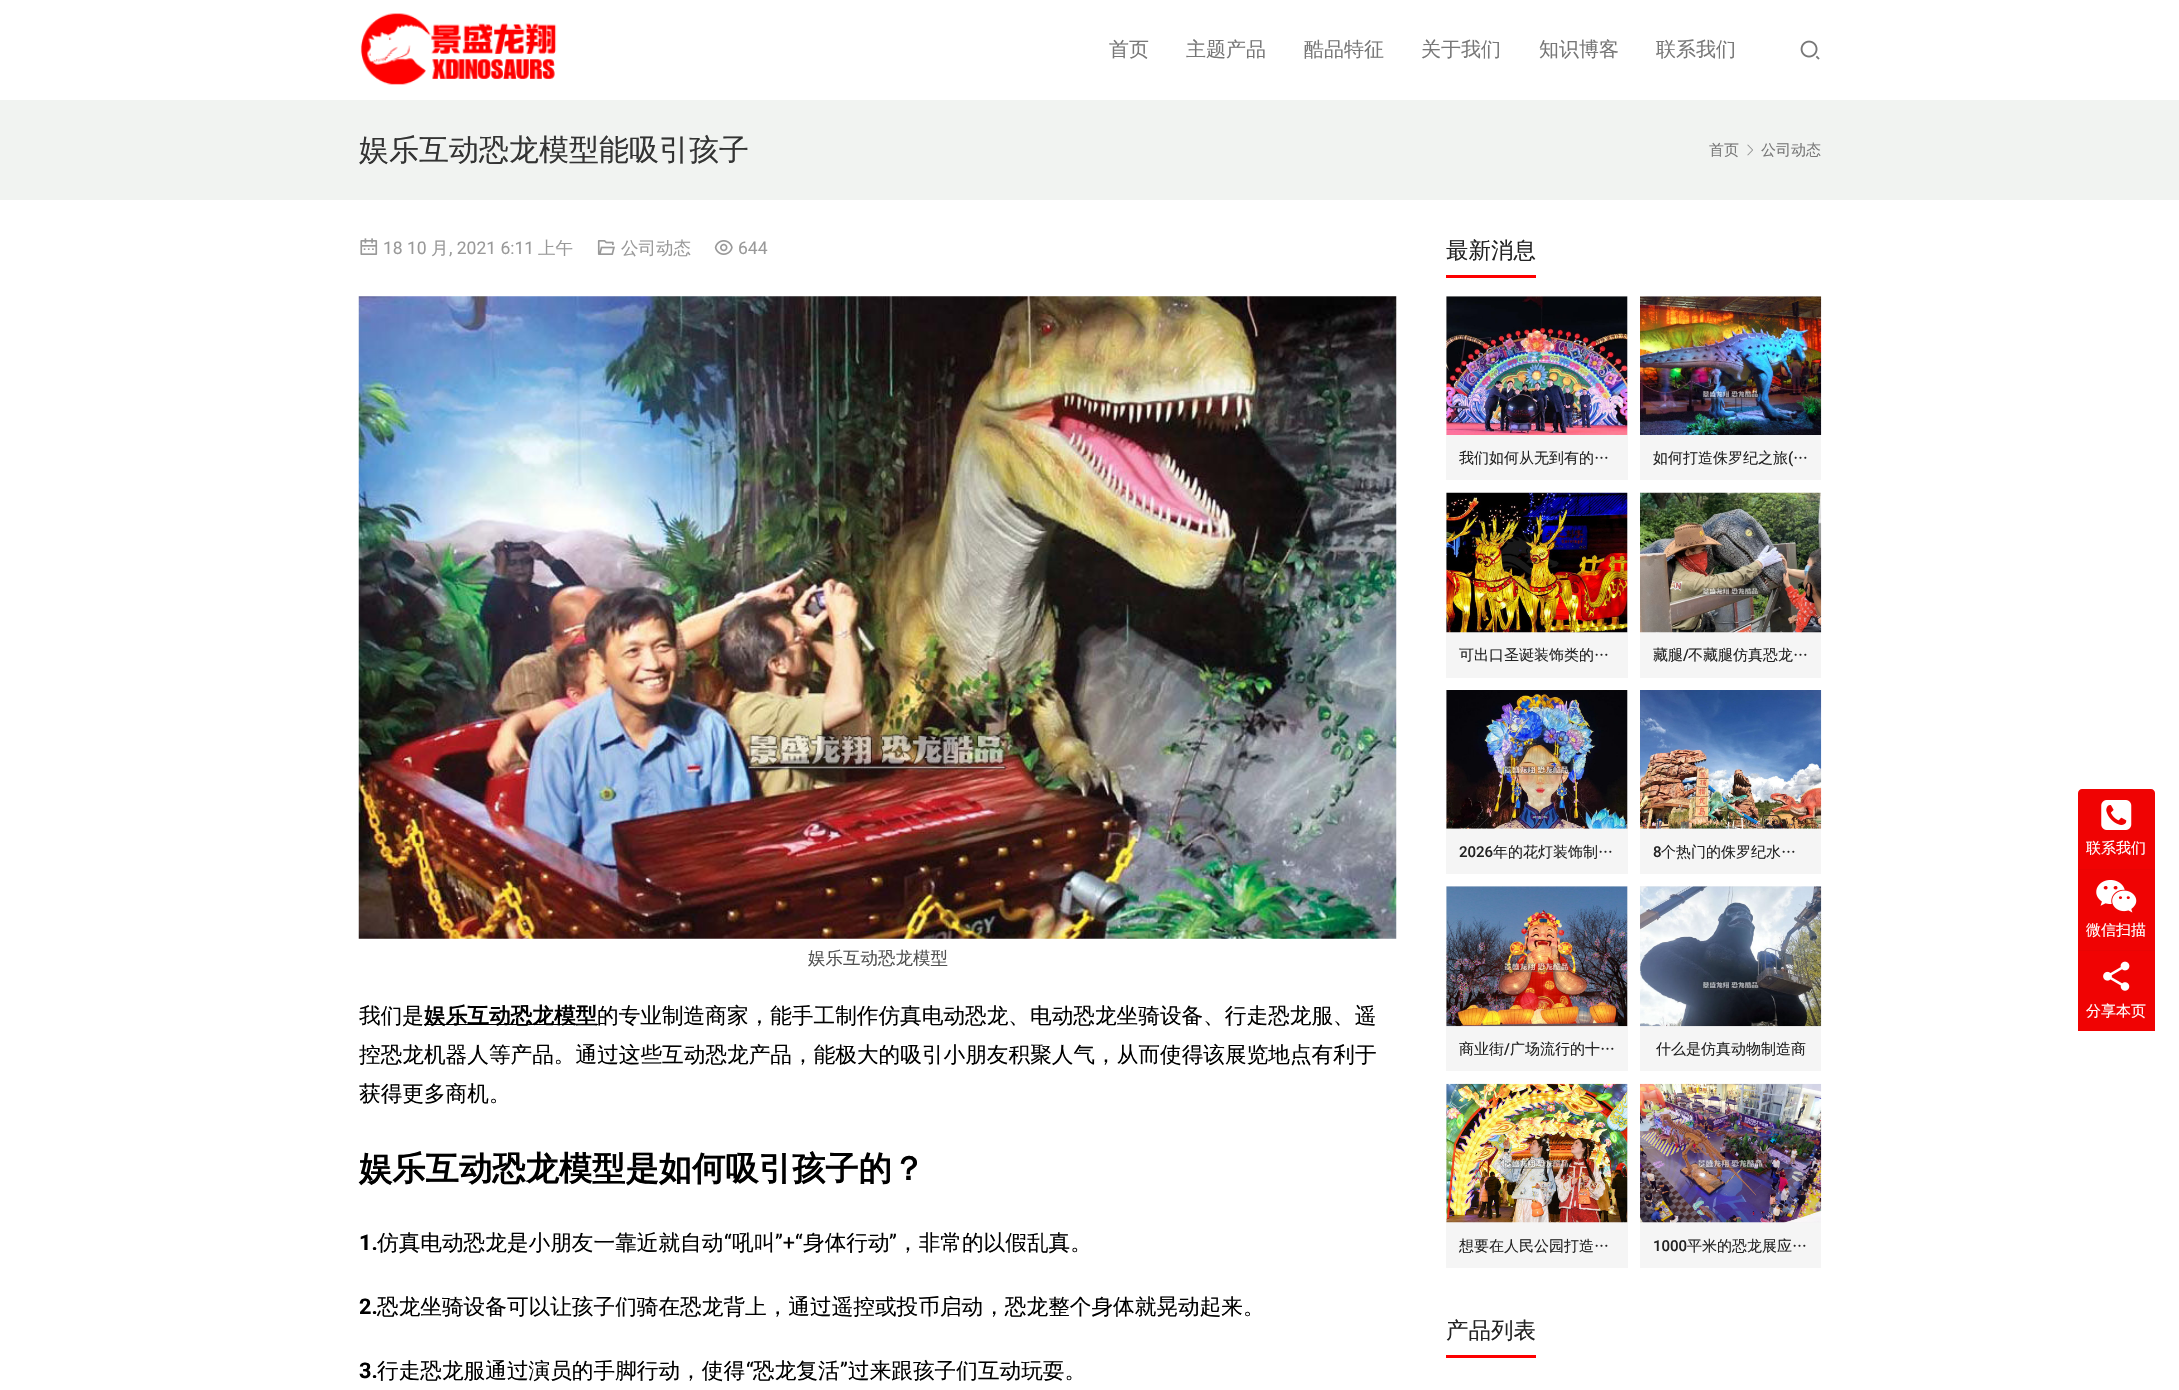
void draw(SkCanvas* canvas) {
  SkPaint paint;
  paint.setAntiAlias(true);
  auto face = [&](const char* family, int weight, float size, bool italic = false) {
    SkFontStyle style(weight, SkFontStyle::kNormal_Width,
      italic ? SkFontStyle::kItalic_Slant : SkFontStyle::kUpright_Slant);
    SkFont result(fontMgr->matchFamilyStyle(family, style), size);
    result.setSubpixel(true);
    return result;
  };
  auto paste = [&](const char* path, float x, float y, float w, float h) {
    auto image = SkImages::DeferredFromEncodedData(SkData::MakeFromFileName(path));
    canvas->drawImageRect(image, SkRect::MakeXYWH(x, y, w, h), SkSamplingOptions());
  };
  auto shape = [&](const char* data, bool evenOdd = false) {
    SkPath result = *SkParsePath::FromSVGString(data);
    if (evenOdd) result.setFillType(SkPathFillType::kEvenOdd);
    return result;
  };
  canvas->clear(0xffffffff);
  paste("img/1.png", 360, 13, 197, 72);
  paste("img/2.png", 1800, 40, 20, 20);
  paint.setColor(0xfff1f3f1);
  canvas->drawRect(SkRect::MakeXYWH(0, 100, 2179, 100), paint);
  paste("img/3.png", 1747, 144, 6, 12);
  paste("img/4.png", 360, 238, 18, 17);
  paste("img/5.png", 597, 240, 18, 15);
  paste("img/6.png", 714, 240, 19, 15);
  paste("img/7.png", 358, 296, 1039, 643);
  {
    const struct { float x, y, w, h; SkColor color; } items[] = {
      {424, 1024, 174, 1, 0xff000000},
      {1446, 275, 90, 3, 0xfffd0000},
      {1446, 296, 182, 184, 0xfff5f5f5},
    };
    for (auto [x, y, w, h, color] : items) {
      paint.setColor(color);
      canvas->drawRect(SkRect::MakeXYWH(x, y, w, h), paint);
    }
  }
  paste("img/8.png", 1446, 296, 182, 139);
  canvas->drawRect(SkRect::MakeXYWH(1640, 296, 181, 184), paint);
  paste("img/9.png", 1640, 296, 182, 139);
  canvas->drawRect(SkRect::MakeXYWH(1446, 493, 182, 185), paint);
  paste("img/10.png", 1446, 492, 182, 141);
  canvas->drawRect(SkRect::MakeXYWH(1640, 632, 181, 46), paint);
  paste("img/11.png", 1640, 492, 182, 141);
  canvas->drawRect(SkRect::MakeXYWH(1446, 690, 182, 184), paint);
  paste("img/12.png", 1446, 690, 182, 139);
  canvas->drawRect(SkRect::MakeXYWH(1640, 828, 181, 46), paint);
  paste("img/13.png", 1640, 690, 182, 139);
  canvas->drawRect(SkRect::MakeXYWH(1446, 886, 182, 185), paint);
  paste("img/14.png", 1446, 886, 182, 141);
  canvas->drawRect(SkRect::MakeXYWH(1640, 886, 181, 185), paint);
  paste("img/15.png", 1640, 886, 182, 141);
  canvas->drawRect(SkRect::MakeXYWH(1446, 1084, 182, 184), paint);
  paste("img/16.png", 1446, 1083, 182, 140);
  canvas->drawRect(SkRect::MakeXYWH(1640, 1222, 181, 46), paint);
  paste("img/17.png", 1640, 1083, 182, 140);
  paint.setColor(0xfffd0000);
  canvas->drawRect(SkRect::MakeXYWH(1446, 1355, 90, 3), paint);
  paint.setColor(0xffff0000);
  canvas->drawPath(shape("M2082 789H2151C2153 789 2155 791 2155 793V869H2078V793C2078 791 2080 789 2082 789Z"), paint);
  paint.setColor(0x12262626);
  canvas->drawPath(shape("M2082 789H2151C2153 789 2155 791 2155 793V869H2078V793C2078 791 2080 789 2082 789Z"), paint);
  paste("img/18.png", 2101, 800, 31, 30);
  paint.setColor(0xffe90404);
  canvas->drawRect(SkRect::MakeXYWH(2078, 869, 77, 1), paint);
  paint.setColor(0xfff00303);
  canvas->drawRect(SkRect::MakeXYWH(2078, 870, 77, 80), paint);
  paste("img/19.png", 2096, 880, 41, 33);
  paint.setColor(0xffe90404);
  canvas->drawRect(SkRect::MakeXYWH(2078, 950, 77, 1), paint);
  paint.setColor(0xfff00303);
  canvas->drawRect(SkRect::MakeXYWH(2078, 951, 77, 80), paint);
  paste("img/20.png", 2103, 961, 27, 30);
  auto f0 = face("WenQuanYi Zen Hei", 500, 20);
  paint.setColor(0xff777777);
  {
    const struct { const char* s; float x, y; } items[] = {
      {"首页", 1109, 56},
      {"主题产品", 1186, 56},
      {"酷品特征", 1304, 56},
      {"关于我们", 1421, 56},
      {"知识博客", 1539, 56},
      {"联系我们", 1656, 56},
    };
    for (auto [s, x, y] : items) {
      canvas->drawString(s, x, y, f0, paint);
    }
  }
  auto f1 = face("WenQuanYi Zen Hei", 500, 30);
  paint.setColor(0xff333333);
  canvas->drawString("娱乐互动恐龙模型能吸引孩子", 359, 160, f1, paint);
  auto f2 = face("WenQuanYi Zen Hei", 500, 15);
  paint.setColor(0xff777777);
  canvas->drawString("首页", 1709, 155, f2, paint);
  canvas->drawString("公司动态", 1761, 155, f2, paint);
  auto f3 = face("Roboto", 400, 17.5f);
  paint.setColor(0xff999999);
  canvas->drawString("18 10", 383, 254, f3, paint);
  auto f4 = face("WenQuanYi Zen Hei", 500, 17.5f);
  canvas->drawString("月", 431, 254, f4, paint);
  canvas->drawString(", 2021 6:11", 449, 254, f3, paint);
  canvas->drawString("上午", 538, 254, f4, paint);
  canvas->drawString("公司动态", 621, 254, f4, paint);
  canvas->drawString("644", 738, 254, f3, paint);
  paint.setColor(0xff515151);
  canvas->drawString("娱乐互动恐龙模型", 808, 964, f4, paint);
  auto f5 = face("WenQuanYi Zen Hei", 500, 21.65f);
  paint.setColor(0xff000000);
  canvas->drawString("我们是", 359, 1023, f5, paint);
  auto f6 = face("WenQuanYi Zen Hei", 700, 21.65f);
  canvas->drawString("娱乐互动恐龙模型", 424, 1023, f6, paint);
  {
    const struct { const char* s; float x, y; } items[] = {
      {"的专业制造商家，能手工制作仿真电动恐龙、电动恐龙坐骑设备、行走恐龙服、遥", 597, 1023},
      {"控恐龙机器人等产品。通过这些互动恐龙产品，能极大的吸引小朋友积聚人气，从而使得该展览地点有利于", 359, 1062},
      {"获得更多商机。", 359, 1101},
    };
    for (auto [s, x, y] : items) {
      canvas->drawString(s, x, y, f5, paint);
    }
  }
  auto f7 = face("WenQuanYi Zen Hei", 700, 33.3f);
  canvas->drawString("娱乐互动恐龙模型是如何吸引孩子的？", 359, 1180, f7, paint);
  auto f8 = face("Roboto", 700, 21.65f);
  canvas->drawString("1.", 359, 1250, f8, paint);
  canvas->drawString("仿真电动恐龙是小朋友一靠近就自动", 377, 1250, f5, paint);
  auto f9 = face("Roboto", 400, 21.65f);
  canvas->drawString("“", 724, 1250, f9, paint);
  canvas->drawString("吼叫", 732, 1250, f5, paint);
  canvas->drawString("”+“", 775, 1250, f9, paint);
  canvas->drawString("身体行动", 803, 1250, f5, paint);
  canvas->drawString("”", 889, 1250, f9, paint);
  canvas->drawString("，非常的以假乱真。", 897, 1250, f5, paint);
  canvas->drawString("2.", 359, 1314, f8, paint);
  canvas->drawString("恐龙坐骑设备可以让孩子们骑在恐龙背上，通过遥控或投币启动，恐龙整个身体就晃动起来。", 377, 1314, f5, paint);
  canvas->drawString("3.", 359, 1378, f8, paint);
  canvas->drawString("行走恐龙服通过演员的手脚行动，使得", 377, 1378, f5, paint);
  canvas->drawString("“", 746, 1378, f9, paint);
  canvas->drawString("恐龙复活", 753, 1378, f5, paint);
  canvas->drawString("”", 840, 1378, f9, paint);
  canvas->drawString("过来跟孩子们互动玩耍。", 848, 1378, f5, paint);
  auto f10 = face("WenQuanYi Zen Hei", 500, 22.5f);
  paint.setColor(0xff232323);
  canvas->drawString("最新消息", 1446, 258, f10, paint);
  canvas->drawString("我们如何从无到有的…", 1459, 463, f2, paint);
  canvas->drawString("如何打造侏罗纪之旅", 1653, 463, f2, paint);
  auto f11 = face("Roboto", 500, 15);
  canvas->drawString("(", 1788, 463, f11, paint);
  {
    const struct { const char* s; float x, y; } items[] = {
      {"…", 1793, 463},
      {"可出口圣诞装饰类的…", 1459, 660},
      {"藏腿", 1653, 660},
    };
    for (auto [s, x, y] : items) {
      canvas->drawString(s, x, y, f2, paint);
    }
  }
  canvas->drawString("/", 1683, 660, f11, paint);
  canvas->drawString("不藏腿仿真恐龙…", 1688, 660, f2, paint);
  canvas->drawString("2026", 1459, 857, f11, paint);
  canvas->drawString("年的花灯装饰制…", 1493, 857, f2, paint);
  canvas->drawString("8", 1653, 857, f11, paint);
  canvas->drawString("个热门的侏罗纪水…", 1661, 857, f2, paint);
  canvas->drawString("商业街", 1459, 1054, f2, paint);
  canvas->drawString("/", 1504, 1054, f11, paint);
  {
    const struct { const char* s; float x, y; } items[] = {
      {"广场流行的十…", 1510, 1054},
      {"什么是仿真动物制造商", 1656, 1054},
      {"想要在人民公园打造…", 1459, 1251},
    };
    for (auto [s, x, y] : items) {
      canvas->drawString(s, x, y, f2, paint);
    }
  }
  canvas->drawString("1000", 1653, 1251, f11, paint);
  canvas->drawString("平米的恐龙展应…", 1687, 1251, f2, paint);
  canvas->drawString("产品列表", 1446, 1338, f10, paint);
  paint.setColor(0xffffffff);
  {
    const struct { const char* s; float x, y; } items[] = {
      {"联系我们", 2086, 853},
      {"微信扫描", 2086, 935},
      {"分享本页", 2086, 1016},
    };
    for (auto [s, x, y] : items) {
      canvas->drawString(s, x, y, f2, paint);
    }
  }
}
